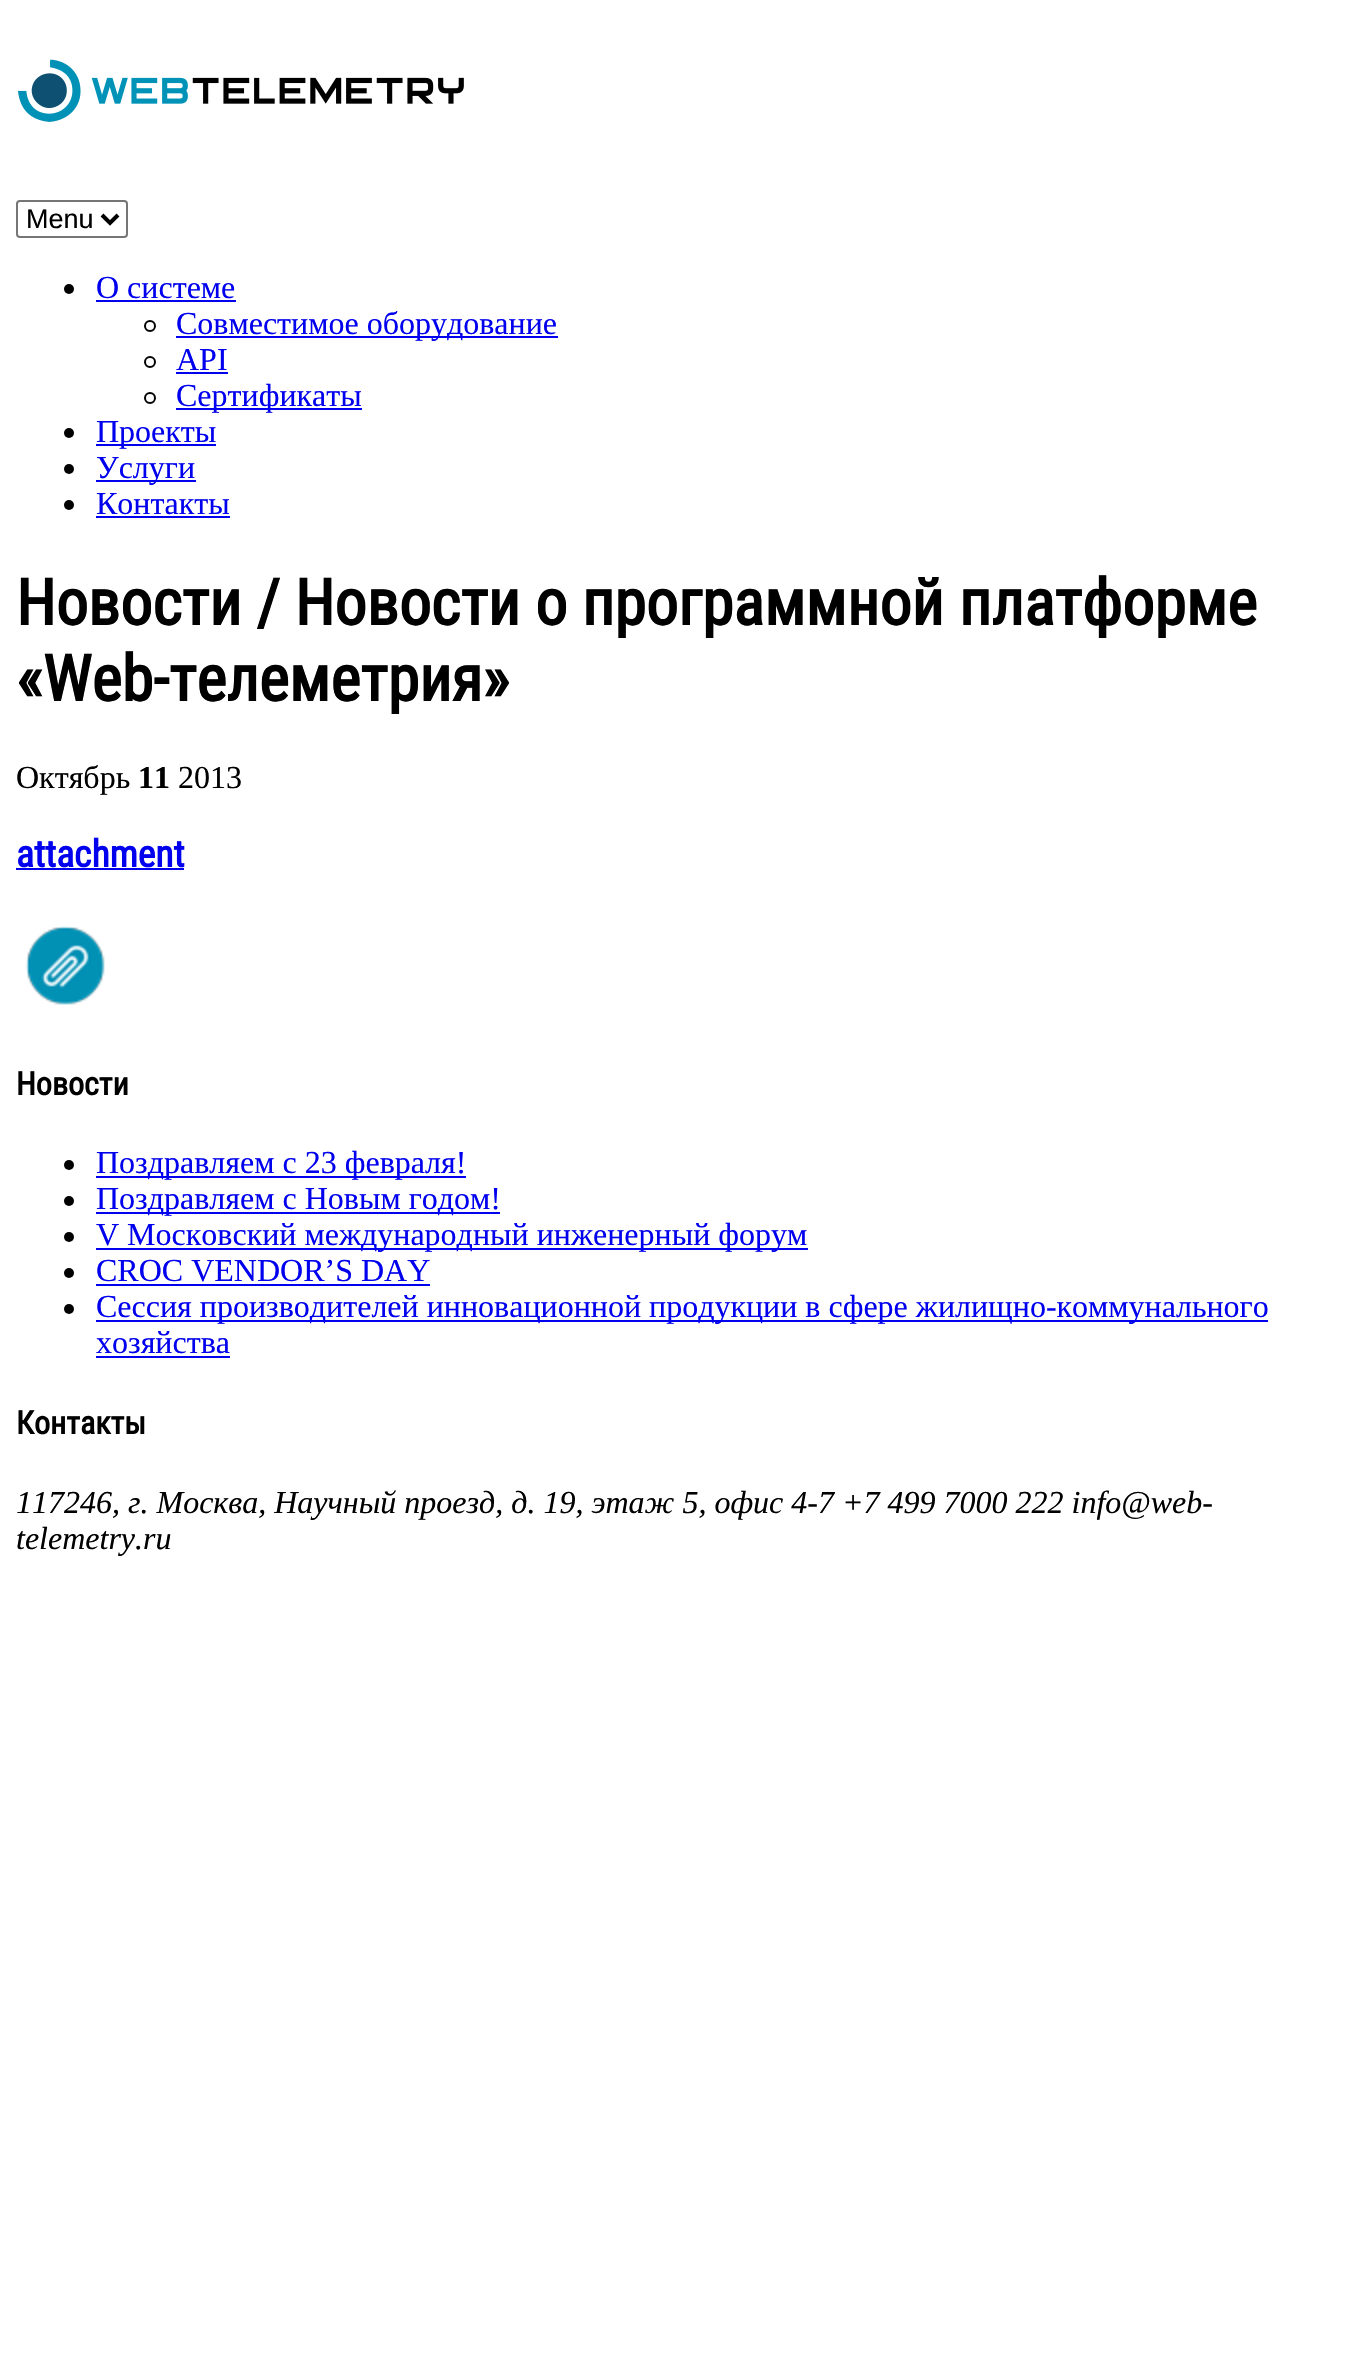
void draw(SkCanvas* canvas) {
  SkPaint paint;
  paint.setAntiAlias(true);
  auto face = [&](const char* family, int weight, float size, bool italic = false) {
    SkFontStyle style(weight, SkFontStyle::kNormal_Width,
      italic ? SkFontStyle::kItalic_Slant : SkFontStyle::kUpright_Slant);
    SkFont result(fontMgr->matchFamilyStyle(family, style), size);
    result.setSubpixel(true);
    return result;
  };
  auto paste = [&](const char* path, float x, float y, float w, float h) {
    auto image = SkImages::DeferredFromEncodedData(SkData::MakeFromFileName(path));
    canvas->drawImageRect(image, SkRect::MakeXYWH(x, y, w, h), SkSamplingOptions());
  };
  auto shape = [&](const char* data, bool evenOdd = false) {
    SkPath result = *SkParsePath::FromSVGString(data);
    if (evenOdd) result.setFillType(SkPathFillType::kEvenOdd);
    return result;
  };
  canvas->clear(0xffffffff);
  paste("img/1.png", 18, 59, 446, 63);
  paint.setStroke(true);
  paint.setStrokeWidth(2);
  paint.setColor(0xff767676);
  canvas->drawRoundRect(SkRect::MakeXYWH(17, 201, 110, 36), 3, 3, paint);
  paint.setStrokeWidth(4);
  paint.setColor(0xff000000);
  canvas->drawPath(shape("M102 215L110 223L118 215"), paint);
  paint.setStroke(false);
  canvas->drawCircle(69, 289, 5, paint);
  paint.setColor(0xff0000ee);
  canvas->drawRect(SkRect::MakeXYWH(96, 300, 140, 2), paint);
  paint.setStroke(true);
  paint.setStrokeWidth(2);
  paint.setColor(0xff000000);
  canvas->drawCircle(150, 326, 5, paint);
  paint.setStroke(false);
  paint.setColor(0xff0000ee);
  canvas->drawRect(SkRect::MakeXYWH(176, 336, 382, 2), paint);
  paint.setStroke(true);
  paint.setColor(0xff000000);
  canvas->drawCircle(150, 362, 5, paint);
  paint.setStroke(false);
  paint.setColor(0xff0000ee);
  canvas->drawRect(SkRect::MakeXYWH(176, 372, 52, 2), paint);
  paint.setStroke(true);
  paint.setColor(0xff000000);
  canvas->drawCircle(150, 398, 5, paint);
  paint.setStroke(false);
  paint.setColor(0xff0000ee);
  canvas->drawRect(SkRect::MakeXYWH(176, 408, 186, 2), paint);
  paint.setColor(0xff000000);
  canvas->drawCircle(69, 433, 5, paint);
  paint.setColor(0xff0000ee);
  canvas->drawRect(SkRect::MakeXYWH(96, 444, 120, 2), paint);
  paint.setColor(0xff000000);
  canvas->drawCircle(69, 469, 5, paint);
  paint.setColor(0xff0000ee);
  canvas->drawRect(SkRect::MakeXYWH(96, 480, 100, 2), paint);
  paint.setColor(0xff000000);
  canvas->drawCircle(69, 505, 5, paint);
  paint.setColor(0xff0000ee);
  canvas->drawRect(SkRect::MakeXYWH(96, 516, 134, 2), paint);
  canvas->drawRect(SkRect::MakeXYWH(16, 868, 168, 2), paint);
  paste("img/2.png", 25, 926, 80, 79);
  paint.setColor(0xff000000);
  canvas->drawCircle(69, 1165, 5, paint);
  paint.setColor(0xff0000ee);
  canvas->drawRect(SkRect::MakeXYWH(96, 1176, 370, 2), paint);
  paint.setColor(0xff000000);
  canvas->drawCircle(69, 1201, 5, paint);
  paint.setColor(0xff0000ee);
  canvas->drawRect(SkRect::MakeXYWH(96, 1212, 404, 2), paint);
  paint.setColor(0xff000000);
  canvas->drawCircle(69, 1237, 5, paint);
  paint.setColor(0xff0000ee);
  canvas->drawRect(SkRect::MakeXYWH(96, 1248, 712, 2), paint);
  paint.setColor(0xff000000);
  canvas->drawCircle(69, 1273, 5, paint);
  paint.setColor(0xff0000ee);
  canvas->drawRect(SkRect::MakeXYWH(96, 1284, 334, 2), paint);
  paint.setColor(0xff000000);
  canvas->drawCircle(69, 1309, 5, paint);
  paint.setColor(0xff0000ee);
  canvas->drawRect(SkRect::MakeXYWH(96, 1320, 1172, 2), paint);
  canvas->drawRect(SkRect::MakeXYWH(96, 1356, 134, 2), paint);
  auto f0 = face("Liberation Sans", 400, 27);
  paint.setColor(0xff000000);
  canvas->drawString("Menu", 26, 228, f0, paint);
  auto f1 = face("Liberation Serif", 400, 32);
  paint.setColor(0xff0000ee);
  {
    const struct { const char* s; float x, y; } items[] = {
      {"О системе", 96, 298},
      {"Совместимое оборудование", 176, 334},
      {"API", 176, 370},
      {"Сертификаты", 176, 406},
      {"Проекты", 96, 442},
      {"Услуги", 96, 478},
      {"Контакты", 96, 514},
    };
    for (auto [s, x, y] : items) {
      canvas->drawString(s, x, y, f1, paint);
    }
  }
  auto f2 = face("Roboto Condensed", 700, 64);
  paint.setColor(0xff000000);
  canvas->drawString("Новости / Новости о программной платформе", 16, 625, f2, paint);
  canvas->drawString("«Web-телеметрия»", 16, 701, f2, paint);
  canvas->drawString("Октябрь", 16, 788, f1, paint);
  auto f3 = face("Liberation Serif", 700, 32);
  canvas->drawString("11", 138, 788, f3, paint);
  canvas->drawString("2013", 178, 788, f1, paint);
  auto f4 = face("Roboto Condensed", 700, 37.5f);
  paint.setColor(0xff0000ee);
  canvas->drawString("attachment", 16, 867, f4, paint);
  auto f5 = face("Roboto Condensed", 700, 32);
  paint.setColor(0xff000000);
  canvas->drawString("Новости", 16, 1095, f5, paint);
  paint.setColor(0xff0000ee);
  {
    const struct { const char* s; float x, y; } items[] = {
      {"Поздравляем с 23 февраля!", 96, 1173},
      {"Поздравляем с Новым годом!", 96, 1209},
      {"V Московский международный инженерный форум", 96, 1245},
      {"CROC VENDOR’S DAY", 96, 1281},
      {"Сессия производителей инновационной продукции в сфере жилищно-коммунального", 96, 1317},
      {"хозяйства", 96, 1353},
    };
    for (auto [s, x, y] : items) {
      canvas->drawString(s, x, y, f1, paint);
    }
  }
  paint.setColor(0xff000000);
  canvas->drawString("Контакты", 16, 1434, f5, paint);
  auto f6 = face("Liberation Serif", 400, 32, true);
  canvas->drawString("117246, г. Москва, Научный проезд, д. 19, этаж 5, офис 4-7 +7 499 7000 222 info@web-", 16, 1513, f6, paint);
  canvas->drawString("telemetry.ru", 16, 1549, f6, paint);
}
